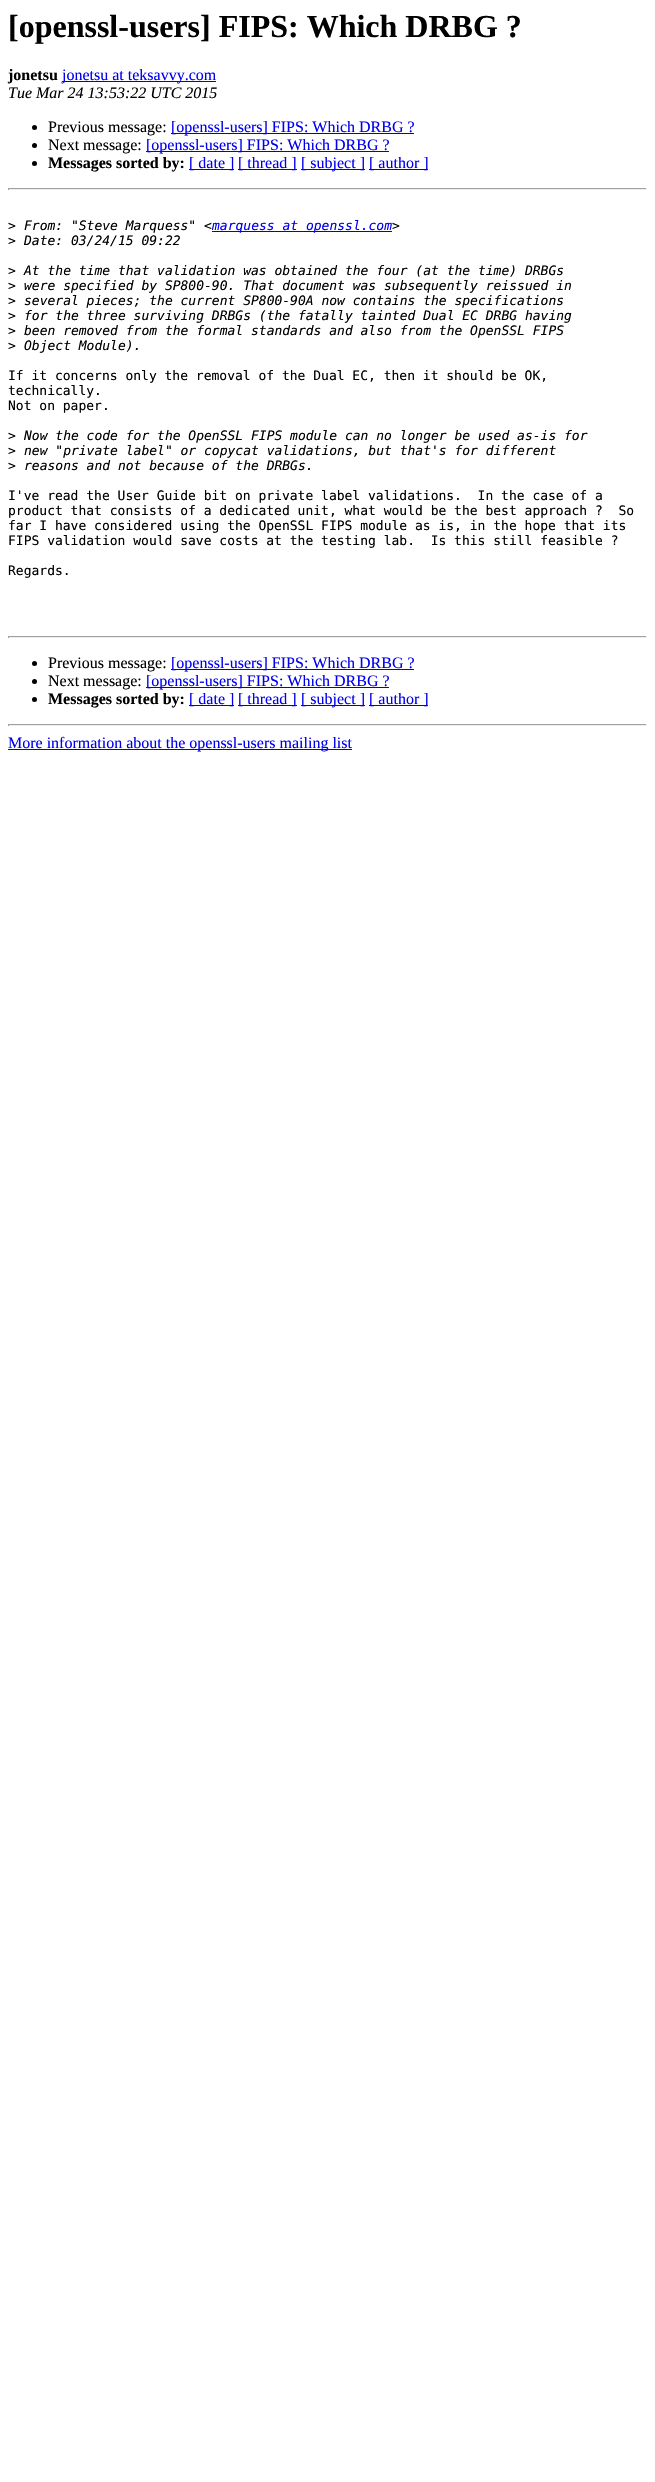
void draw(SkCanvas* canvas) {
  SkPaint paint;
  paint.setAntiAlias(true);
  auto face = [&](const char* family, int weight, float size, bool italic = false) {
    SkFontStyle style(weight, SkFontStyle::kNormal_Width,
      italic ? SkFontStyle::kItalic_Slant : SkFontStyle::kUpright_Slant);
    SkFont result(fontMgr->matchFamilyStyle(family, style), size);
    result.setSubpixel(true);
    return result;
  };
  canvas->clear(0xffffffff);
  paint.setColor(0xff0000ee);
  canvas->drawRect(SkRect::MakeXYWH(62, 81, 154, 1), paint);
  paint.setColor(0xff000000);
  canvas->drawCircle(34.5f, 127.5f, 2.5f, paint);
  paint.setColor(0xff0000ee);
  canvas->drawRect(SkRect::MakeXYWH(171, 133, 243, 1), paint);
  paint.setColor(0xff000000);
  canvas->drawCircle(34.5f, 145.5f, 2.5f, paint);
  paint.setColor(0xff0000ee);
  canvas->drawRect(SkRect::MakeXYWH(146, 151, 243, 1), paint);
  paint.setColor(0xff000000);
  canvas->drawCircle(34.5f, 163.5f, 2.5f, paint);
  {
    const struct { float x, y, w, h; SkColor color; } items[] = {
      {189, 169, 45, 1, 0xff0000ee},
      {238, 169, 59, 1, 0xff0000ee},
      {301, 169, 64, 1, 0xff0000ee},
      {369, 169, 59, 1, 0xff0000ee},
      {8, 188, 639, 1, 0xff9f9f9f},
      {646, 188, 1, 2, 0xffeeeeee},
      {8, 189, 639, 1, 0xffeeeeee},
      {8, 188, 1, 2, 0xff9f9f9f},
      {212, 231, 180, 1, 0xff0000ee},
      {8, 636, 639, 1, 0xff9f9f9f},
      {646, 636, 1, 2, 0xffeeeeee},
      {8, 637, 639, 1, 0xffeeeeee},
      {8, 636, 1, 2, 0xff9f9f9f},
    };
    for (auto [x, y, w, h, color] : items) {
      paint.setColor(color);
      canvas->drawRect(SkRect::MakeXYWH(x, y, w, h), paint);
    }
  }
  paint.setColor(0xff000000);
  canvas->drawCircle(34.5f, 663.5f, 2.5f, paint);
  paint.setColor(0xff0000ee);
  canvas->drawRect(SkRect::MakeXYWH(171, 669, 243, 1), paint);
  paint.setColor(0xff000000);
  canvas->drawCircle(34.5f, 681.5f, 2.5f, paint);
  paint.setColor(0xff0000ee);
  canvas->drawRect(SkRect::MakeXYWH(146, 687, 243, 1), paint);
  paint.setColor(0xff000000);
  canvas->drawCircle(34.5f, 699.5f, 2.5f, paint);
  {
    const struct { float x, y, w, h; SkColor color; } items[] = {
      {189, 705, 45, 1, 0xff0000ee},
      {238, 705, 59, 1, 0xff0000ee},
      {301, 705, 64, 1, 0xff0000ee},
      {369, 705, 59, 1, 0xff0000ee},
      {8, 724, 639, 1, 0xff9f9f9f},
      {646, 724, 1, 2, 0xffeeeeee},
      {8, 725, 639, 1, 0xffeeeeee},
      {8, 724, 1, 2, 0xff9f9f9f},
      {8, 749, 344, 1, 0xff0000ee},
    };
    for (auto [x, y, w, h, color] : items) {
      paint.setColor(color);
      canvas->drawRect(SkRect::MakeXYWH(x, y, w, h), paint);
    }
  }
  auto f0 = face("Liberation Serif", 700, 32);
  paint.setColor(0xff000000);
  canvas->drawString("[openssl-users] FIPS: Which DRBG ?", 8, 37, f0, paint);
  auto f1 = face("Liberation Serif", 700, 16);
  canvas->drawString("jonetsu", 8, 80, f1, paint);
  auto f2 = face("Liberation Serif", 400, 16);
  paint.setColor(0xff0000ee);
  canvas->drawString("jonetsu at teksavvy.com", 62, 80, f2, paint);
  auto f3 = face("Liberation Serif", 400, 16, true);
  paint.setColor(0xff000000);
  canvas->drawString("Tue Mar 24 13:53:22 UTC 2015", 8, 98, f3, paint);
  canvas->drawString("Previous message:", 48, 132, f2, paint);
  paint.setColor(0xff0000ee);
  canvas->drawString("[openssl-users] FIPS: Which DRBG ?", 171, 132, f2, paint);
  paint.setColor(0xff000000);
  canvas->drawString("Next message:", 48, 150, f2, paint);
  paint.setColor(0xff0000ee);
  canvas->drawString("[openssl-users] FIPS: Which DRBG ?", 146, 150, f2, paint);
  paint.setColor(0xff000000);
  canvas->drawString("Messages sorted by:", 48, 168, f1, paint);
  paint.setColor(0xff0000ee);
  {
    const struct { const char* s; float x, y; } items[] = {
      {"[ date ]", 189, 168},
      {"[ thread ]", 238, 168},
      {"[ subject ]", 301, 168},
      {"[ author ]", 369, 168},
    };
    for (auto [s, x, y] : items) {
      canvas->drawString(s, x, y, f2, paint);
    }
  }
  auto f4 = face("DejaVu Sans Mono", 400, 13);
  paint.setColor(0xff000000);
  canvas->drawString(">", 8, 230, f4, paint);
  auto f5 = face("DejaVu Sans Mono", 400, 13, true);
  canvas->drawString("From: \"Steve Marquess\" <", 24, 230, f5, paint);
  paint.setColor(0xff0000ee);
  canvas->drawString("marquess at openssl.com", 212, 230, f5, paint);
  paint.setColor(0xff000000);
  canvas->drawString(">", 392, 230, f5, paint);
  canvas->drawString(">", 8, 245, f4, paint);
  canvas->drawString("Date: 03/24/15 09:22", 24, 245, f5, paint);
  canvas->drawString(">", 8, 275, f4, paint);
  canvas->drawString("At the time that validation was obtained the four (at the time) DRBGs", 24, 275, f5, paint);
  canvas->drawString(">", 8, 290, f4, paint);
  canvas->drawString("were specified by SP800-90. That document was subsequently reissued in", 24, 290, f5, paint);
  canvas->drawString(">", 8, 305, f4, paint);
  canvas->drawString("several pieces; the current SP800-90A now contains the specifications", 24, 305, f5, paint);
  canvas->drawString(">", 8, 320, f4, paint);
  canvas->drawString("for the three surviving DRBGs (the fatally tainted Dual EC DRBG having", 24, 320, f5, paint);
  canvas->drawString(">", 8, 335, f4, paint);
  canvas->drawString("been removed from the formal standards and also from the OpenSSL FIPS", 24, 335, f5, paint);
  canvas->drawString(">", 8, 350, f4, paint);
  canvas->drawString("Object Module).", 24, 350, f5, paint);
  {
    const struct { const char* s; float x, y; } items[] = {
      {"If it concerns only the removal of the Dual EC, then it should be OK,", 8, 380},
      {"technically.", 8, 395},
      {"Not on paper.", 8, 410},
      {">", 8, 440},
    };
    for (auto [s, x, y] : items) {
      canvas->drawString(s, x, y, f4, paint);
    }
  }
  canvas->drawString("Now the code for the OpenSSL FIPS module can no longer be used as-is for", 24, 440, f5, paint);
  canvas->drawString(">", 8, 455, f4, paint);
  canvas->drawString("new \"private label\" or copycat validations, but that's for different", 24, 455, f5, paint);
  canvas->drawString(">", 8, 470, f4, paint);
  canvas->drawString("reasons and not because of the DRBGs.", 24, 470, f5, paint);
  {
    const struct { const char* s; float x, y; } items[] = {
      {"I've read the User Guide bit on private label validations.  In the case of a", 8, 500},
      {"product that consists of a dedicated unit, what would be the best approach ?  So", 8, 515},
      {"far I have considered using the OpenSSL FIPS module as is, in the hope that its", 8, 530},
      {"FIPS validation would save costs at the testing lab.  Is this still feasible ?", 8, 545},
      {"Regards.", 8, 575},
    };
    for (auto [s, x, y] : items) {
      canvas->drawString(s, x, y, f4, paint);
    }
  }
  canvas->drawString("Previous message:", 48, 668, f2, paint);
  paint.setColor(0xff0000ee);
  canvas->drawString("[openssl-users] FIPS: Which DRBG ?", 171, 668, f2, paint);
  paint.setColor(0xff000000);
  canvas->drawString("Next message:", 48, 686, f2, paint);
  paint.setColor(0xff0000ee);
  canvas->drawString("[openssl-users] FIPS: Which DRBG ?", 146, 686, f2, paint);
  paint.setColor(0xff000000);
  canvas->drawString("Messages sorted by:", 48, 704, f1, paint);
  paint.setColor(0xff0000ee);
  {
    const struct { const char* s; float x, y; } items[] = {
      {"[ date ]", 189, 704},
      {"[ thread ]", 238, 704},
      {"[ subject ]", 301, 704},
      {"[ author ]", 369, 704},
      {"More information about the openssl-users mailing list", 8, 748},
    };
    for (auto [s, x, y] : items) {
      canvas->drawString(s, x, y, f2, paint);
    }
  }
}
